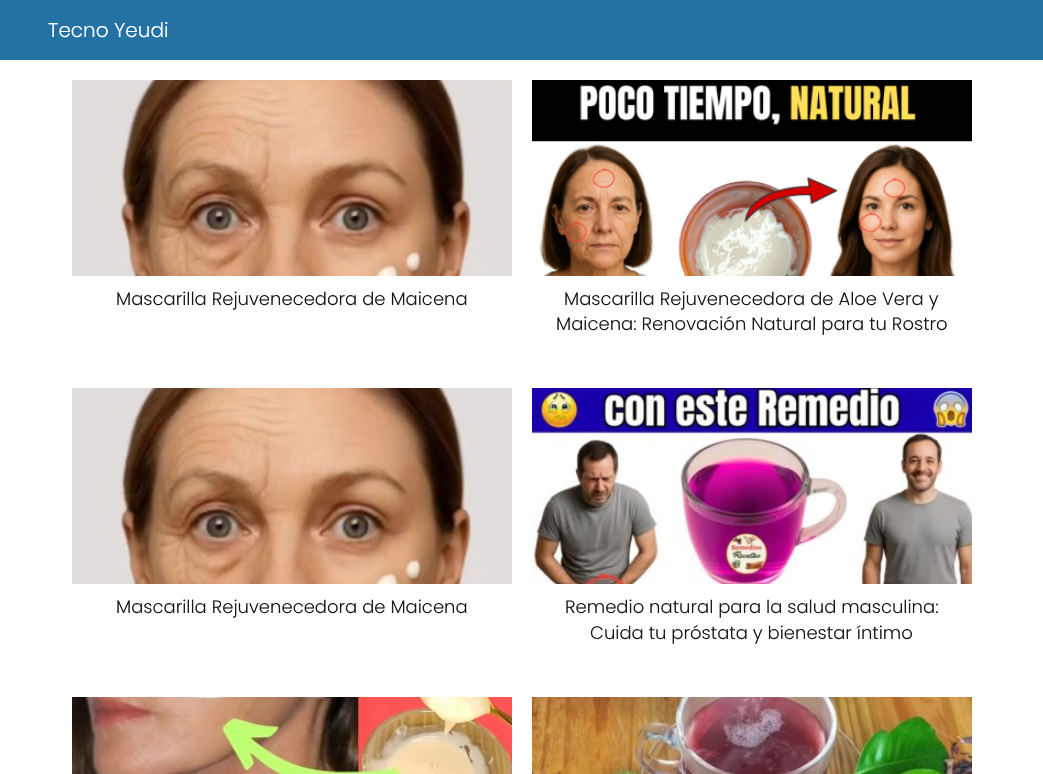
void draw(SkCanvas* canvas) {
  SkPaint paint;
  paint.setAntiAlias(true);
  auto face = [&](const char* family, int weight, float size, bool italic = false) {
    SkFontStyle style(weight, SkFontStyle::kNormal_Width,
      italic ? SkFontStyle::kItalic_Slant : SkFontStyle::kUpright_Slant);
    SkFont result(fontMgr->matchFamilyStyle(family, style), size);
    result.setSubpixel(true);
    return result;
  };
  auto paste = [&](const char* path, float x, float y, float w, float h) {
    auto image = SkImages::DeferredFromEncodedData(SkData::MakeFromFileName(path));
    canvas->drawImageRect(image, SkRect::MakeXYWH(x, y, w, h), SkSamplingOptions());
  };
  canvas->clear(0xffffffff);
  paint.setColor(0xff2471a3);
  canvas->drawRect(SkRect::MakeXYWH(0, 0, 1043, 60), paint);
  paste("img/1.png", 72, 80, 440, 196);
  paste("img/2.png", 532, 80, 440, 196);
  paste("img/1.png", 72, 388, 440, 196);
  paste("img/3.png", 532, 388, 440, 196);
  paste("img/4.png", 72, 697, 440, 77);
  paste("img/5.png", 532, 697, 440, 77);
  auto f0 = face("Poppins", 300, 20);
  paint.setColor(0xffffffff);
  canvas->drawString("Tecno Yeudi", 48, 37, f0, paint);
  auto f1 = face("Poppins", 300, 18);
  paint.setColor(0xff181818);
  {
    const struct { const char* s; float x, y; } items[] = {
      {"Mascarilla Rejuvenecedora de Maicena", 116, 305},
      {"Mascarilla Rejuvenecedora de Aloe Vera y", 564, 305},
      {"Maicena: Renovación Natural para tu Rostro", 556, 330},
      {"Mascarilla Rejuvenecedora de Maicena", 116, 613},
      {"Remedio natural para la salud masculina:", 565, 613},
      {"Cuida tu próstata y bienestar íntimo", 590, 639},
    };
    for (auto [s, x, y] : items) {
      canvas->drawString(s, x, y, f1, paint);
    }
  }
}
